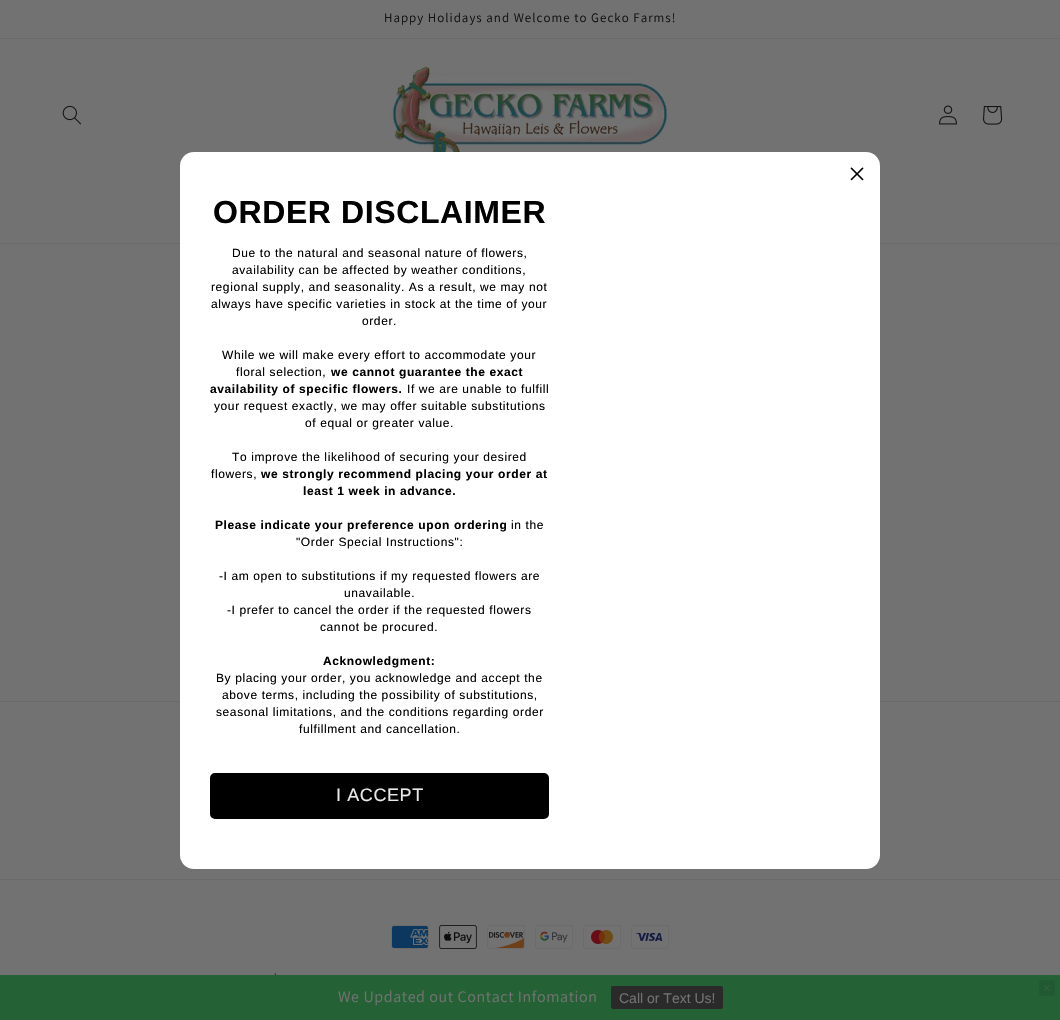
void draw(SkCanvas* canvas) {
  SkPaint paint;
  paint.setAntiAlias(true);
  auto face = [&](const char* family, int weight, float size, bool italic = false) {
    SkFontStyle style(weight, SkFontStyle::kNormal_Width,
      italic ? SkFontStyle::kItalic_Slant : SkFontStyle::kUpright_Slant);
    SkFont result(fontMgr->matchFamilyStyle(family, style), size);
    result.setSubpixel(true);
    return result;
  };
  auto writeSpaced = [&](const char* s, float x, float y, const SkFont& font, const SkPaint& ink, float letter, float word) {
    std::vector<SkGlyphID> glyphs(font.countText(s, strlen(s), SkTextEncoding::kUTF8));
    std::vector<float> xs(glyphs.size());
    font.textToGlyphs(s, strlen(s), SkTextEncoding::kUTF8, glyphs);
    font.getXPos(glyphs, xs, x);
    float extra = 0;
    for (size_t i = 0; i < glyphs.size(); i++) {
      xs[i] += extra;
      extra += letter + word * (glyphs[i] == font.unicharToGlyph(' '));
    }
    canvas->drawTextBlob(SkTextBlob::MakeFromPosHGlyphs(glyphs, xs, y, font), 0, 0, ink);
  };
  auto paste = [&](const char* path, float x, float y, float w, float h) {
    auto image = SkImages::DeferredFromEncodedData(SkData::MakeFromFileName(path));
    canvas->drawImageRect(image, SkRect::MakeXYWH(x, y, w, h), SkSamplingOptions());
  };
  canvas->clear(0xff727272);
  paint.setColor(0xff6a6a6a);
  canvas->drawRect(SkRect::MakeXYWH(0, 38, 1060, 1), paint);
  canvas->drawRect(SkRect::MakeXYWH(0, 243, 1060, 1), paint);
  paste("img/1.png", 62, 105, 19, 20);
  paste("img/2.png", 390, 67, 279, 85);
  paste("img/3.png", 939, 105, 18, 20);
  paste("img/4.png", 983, 106, 20, 19);
  canvas->drawRect(SkRect::MakeXYWH(0, 701, 1060, 1), paint);
  paint.setColor(0xffffffff);
  canvas->drawRoundRect(SkRect::MakeXYWH(180, 152, 700, 717), 14, 14, paint);
  paste("img/5.png", 850, 167, 14, 14);
  paint.setColor(0xff000000);
  canvas->drawRoundRect(SkRect::MakeXYWH(211, 774, 337, 44), 4, 4, paint);
  paint.setStroke(true);
  paint.setStrokeWidth(2);
  canvas->drawRoundRect(SkRect::MakeXYWH(211, 774, 337, 44), 4, 4, paint);
  paint.setStroke(false);
  paint.setColor(0xff6a6a6a);
  canvas->drawRect(SkRect::MakeXYWH(0, 879, 1060, 1), paint);
  paste("img/6.png", 391, 925, 38, 24);
  paste("img/7.png", 439, 925, 38, 24);
  paste("img/8.png", 487, 925, 38, 24);
  paste("img/9.png", 535, 925, 38, 24);
  paste("img/10.png", 583, 925, 38, 24);
  paste("img/11.png", 631, 925, 38, 24);
  paint.setColor(0xff246235);
  canvas->drawRect(SkRect::MakeXYWH(0, 975, 1060, 45), paint);
  paint.setColor(0xff215a31);
  canvas->drawRoundRect(SkRect::MakeXYWH(1039, 980, 16, 16), 3, 3, paint);
  paste("img/12.png", 1044, 985, 6, 6);
  paint.setColor(0xff2a2a2a);
  canvas->drawRoundRect(SkRect::MakeXYWH(611, 986, 112, 23), 2, 2, paint);
  auto f0 = face("Assistant", 400, 13);
  paint.setColor(0xff131313);
  writeSpaced("Happy Holidays and Welcome to Gecko Farms!", 384, 22, f0, paint, 1, 0);
  auto f1 = face("Liberation Sans", 700, 32);
  paint.setColor(0xff000000);
  writeSpaced("ORDER DISCLAIMER", 213, 223, f1, paint, 0.6f, 0);
  auto f2 = face("Liberation Sans", 400, 12);
  {
    const struct { const char* s; float x, y; } items[] = {
      {"Due to the natural and seasonal nature of flowers,", 232, 257},
      {"availability can be affected by weather conditions,", 232, 274},
      {"regional supply, and seasonality. As a result, we may not", 211, 291},
      {"always have specific varieties in stock at the time of your", 211, 308},
      {"order.", 362, 325},
      {"While we will make every effort to accommodate your", 222, 359},
      {"floral selection,", 236, 376},
    };
    for (auto [s, x, y] : items) {
      writeSpaced(s, x, y, f2, paint, 0.6f, 0);
    }
  }
  auto f3 = face("Liberation Sans", 700, 12);
  writeSpaced("we cannot guarantee the exact", 331, 376, f3, paint, 0.6f, 0);
  writeSpaced("availability of specific flowers.", 210, 393, f3, paint, 0.6f, 0);
  {
    const struct { const char* s; float x, y; } items[] = {
      {"If we are unable to fulfill", 407, 393},
      {"your request exactly, we may offer suitable substitutions", 214, 410},
      {"of equal or greater value.", 305, 427},
      {"To improve the likelihood of securing your desired", 232, 461},
      {"flowers,", 211, 478},
    };
    for (auto [s, x, y] : items) {
      writeSpaced(s, x, y, f2, paint, 0.6f, 0);
    }
  }
  {
    const struct { const char* s; float x, y; } items[] = {
      {"we strongly recommend placing your order at", 261, 478},
      {"least 1 week in advance.", 303, 495},
      {"Please indicate your preference upon ordering", 215, 529},
    };
    for (auto [s, x, y] : items) {
      writeSpaced(s, x, y, f3, paint, 0.6f, 0);
    }
  }
  {
    const struct { const char* s; float x, y; } items[] = {
      {"in the", 511, 529},
      {"\"Order Special Instructions\":", 296, 546},
      {"-I am open to substitutions if my requested flowers are", 219, 580},
      {"unavailable.", 344, 597},
      {"-I prefer to cancel the order if the requested flowers", 227, 614},
      {"cannot be procured.", 320, 631},
    };
    for (auto [s, x, y] : items) {
      writeSpaced(s, x, y, f2, paint, 0.6f, 0);
    }
  }
  writeSpaced("Acknowledgment:", 323, 665, f3, paint, 0.6f, 0);
  {
    const struct { const char* s; float x, y; } items[] = {
      {"By placing your order, you acknowledge and accept the", 216, 682},
      {"above terms, including the possibility of substitutions,", 222, 699},
      {"seasonal limitations, and the conditions regarding order", 216, 716},
      {"fulfillment and cancellation.", 299, 733},
    };
    for (auto [s, x, y] : items) {
      writeSpaced(s, x, y, f2, paint, 0.6f, 0);
    }
  }
  auto f4 = face("Liberation Sans", 400, 18);
  paint.setColor(0xffe8e8e8);
  writeSpaced("I ACCEPT", 336, 801, f4, paint, 0.6f, 0);
  auto f5 = face("Assistant", 400, 12);
  paint.setColor(0xff2b2b2b);
  writeSpaced("·", 274, 978, f5, paint, 1, 0);
  auto f6 = face("Assistant", 400, 16);
  paint.setColor(0xff727272);
  writeSpaced("We Updated out Contact Infomation", 338, 1002, f6, paint, 0.6f, 0);
  auto f7 = face("Liberation Sans", 400, 14);
  canvas->drawString("Call or Text Us!", 619, 1003, f7, paint);
}
